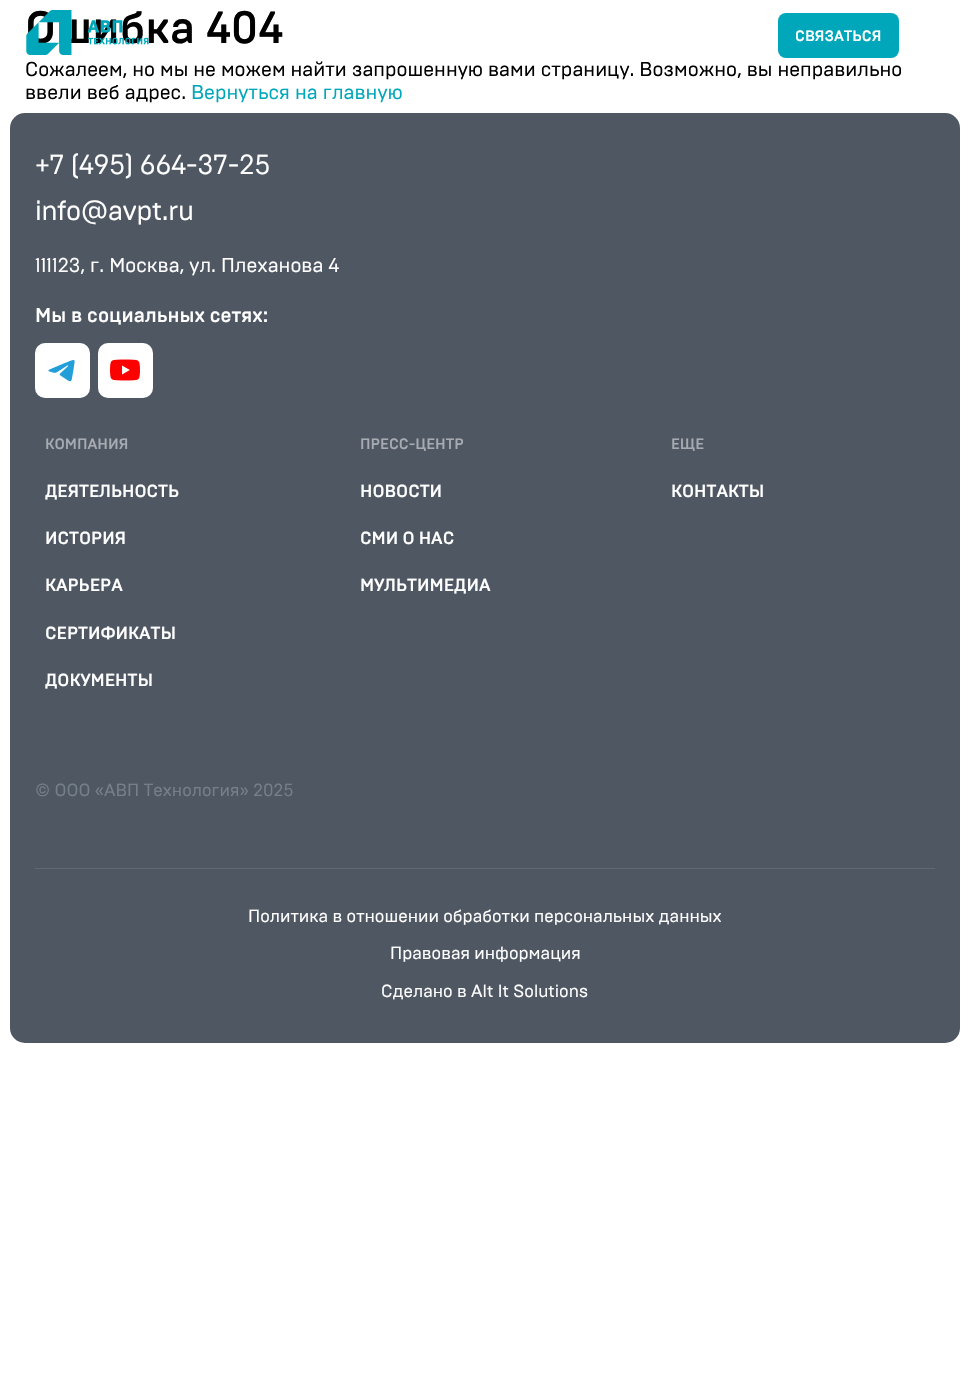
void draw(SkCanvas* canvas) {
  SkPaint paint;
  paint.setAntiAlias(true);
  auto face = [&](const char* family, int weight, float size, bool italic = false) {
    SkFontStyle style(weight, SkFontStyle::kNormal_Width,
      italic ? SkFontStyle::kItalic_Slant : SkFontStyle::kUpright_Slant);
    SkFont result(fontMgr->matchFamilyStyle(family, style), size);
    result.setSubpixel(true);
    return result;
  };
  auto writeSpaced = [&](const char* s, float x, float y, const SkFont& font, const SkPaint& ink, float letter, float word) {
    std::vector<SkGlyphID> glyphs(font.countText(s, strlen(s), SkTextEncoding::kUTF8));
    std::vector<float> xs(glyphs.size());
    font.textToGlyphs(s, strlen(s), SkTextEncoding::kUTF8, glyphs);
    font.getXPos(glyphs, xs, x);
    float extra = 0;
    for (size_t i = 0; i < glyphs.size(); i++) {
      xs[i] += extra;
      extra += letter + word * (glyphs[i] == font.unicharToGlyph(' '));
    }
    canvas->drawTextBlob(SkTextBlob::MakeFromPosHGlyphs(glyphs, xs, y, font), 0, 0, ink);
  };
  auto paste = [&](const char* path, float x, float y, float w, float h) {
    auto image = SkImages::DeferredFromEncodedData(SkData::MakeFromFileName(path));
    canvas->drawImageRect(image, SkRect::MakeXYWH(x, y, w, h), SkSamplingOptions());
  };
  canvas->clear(0xffffffff);
  paint.setColor(0xff00a7ba);
  canvas->drawRoundRect(SkRect::MakeXYWH(778, 13, 121, 45), 8, 8, paint);
  paint.setColor(0xff4f5763);
  canvas->drawRoundRect(SkRect::MakeXYWH(10, 113, 950, 930), 15, 15, paint);
  paint.setColor(0xffffffff);
  canvas->drawRoundRect(SkRect::MakeXYWH(35, 343, 55, 55), 10, 10, paint);
  paste("img/2.png", 48, 360, 27, 22);
  canvas->drawRoundRect(SkRect::MakeXYWH(98, 343, 55, 55), 10, 10, paint);
  paste("img/3.png", 110, 359, 30, 22);
  paint.setColor(0xff616873);
  canvas->drawRect(SkRect::MakeXYWH(35, 868, 900, 1), paint);
  auto f0 = face("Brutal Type", 500, 45);
  paint.setColor(0xff000000);
  canvas->drawString("Ошибка 404", 25, 43, f0, paint);
  auto f1 = face("Brutal Type", 400, 20);
  canvas->drawString("Сожалеем, но мы не можем найти запрошенную вами страницу. Возможно, вы неправильно", 25, 76, f1, paint);
  canvas->drawString("ввели веб адрес.", 25, 99, f1, paint);
  paint.setColor(0xff00a7ba);
  canvas->drawString("Вернуться на главную", 191, 99, f1, paint);
  paste("img/1.png", 26, 10, 123, 45);
  auto f2 = face("Brutal Type", 500, 15);
  paint.setColor(0xffffffff);
  canvas->drawString("СВЯЗАТЬСЯ", 795, 41, f2, paint);
  auto f3 = face("Brutal Type", 400, 27.5f);
  writeSpaced("+7 (495) 664-37-25", 35, 174, f3, paint, -0.3f, 0);
  writeSpaced("info@avpt.ru", 35, 220, f3, paint, -0.3f, 0);
  canvas->drawString("111123, г. Москва, ул. Плеханова 4", 35, 272, f1, paint);
  auto f4 = face("Brutal Type", 500, 20);
  canvas->drawString("Мы в социальных сетях:", 35, 322, f4, paint);
  paint.setColor(0xffa7abb1);
  canvas->drawString("КОМПАНИЯ", 45, 449, f2, paint);
  auto f5 = face("Brutal Type", 500, 17.5f);
  paint.setColor(0xffffffff);
  {
    const struct { const char* s; float x, y; } items[] = {
      {"ДЕЯТЕЛЬНОСТЬ", 45, 497},
      {"ИСТОРИЯ", 45, 544},
      {"КАРЬЕРА", 45, 591},
      {"СЕРТИФИКАТЫ", 45, 639},
      {"ДОКУМЕНТЫ", 45, 686},
    };
    for (auto [s, x, y] : items) {
      canvas->drawString(s, x, y, f5, paint);
    }
  }
  paint.setColor(0xffa7abb1);
  canvas->drawString("ПРЕСС-ЦЕНТР", 360, 449, f2, paint);
  paint.setColor(0xffffffff);
  {
    const struct { const char* s; float x, y; } items[] = {
      {"НОВОСТИ", 360, 497},
      {"СМИ О НАС", 360, 544},
      {"МУЛЬТИМЕДИА", 360, 591},
    };
    for (auto [s, x, y] : items) {
      canvas->drawString(s, x, y, f5, paint);
    }
  }
  paint.setColor(0xffa7abb1);
  canvas->drawString("ЕЩЕ", 671, 449, f2, paint);
  paint.setColor(0xffffffff);
  canvas->drawString("КОНТАКТЫ", 671, 497, f5, paint);
  auto f6 = face("Brutal Type", 400, 17.5f);
  paint.setColor(0xff768089);
  canvas->drawString("© ООО «АВП Технология» 2025", 35, 796, f6, paint);
  paint.setColor(0xffffffff);
  {
    const struct { const char* s; float x, y; } items[] = {
      {"Политика в отношении обработки персональных данных", 248, 922},
      {"Правовая информация", 390, 959},
      {"Сделано в Alt It Solutions", 381, 997},
    };
    for (auto [s, x, y] : items) {
      canvas->drawString(s, x, y, f6, paint);
    }
  }
}
